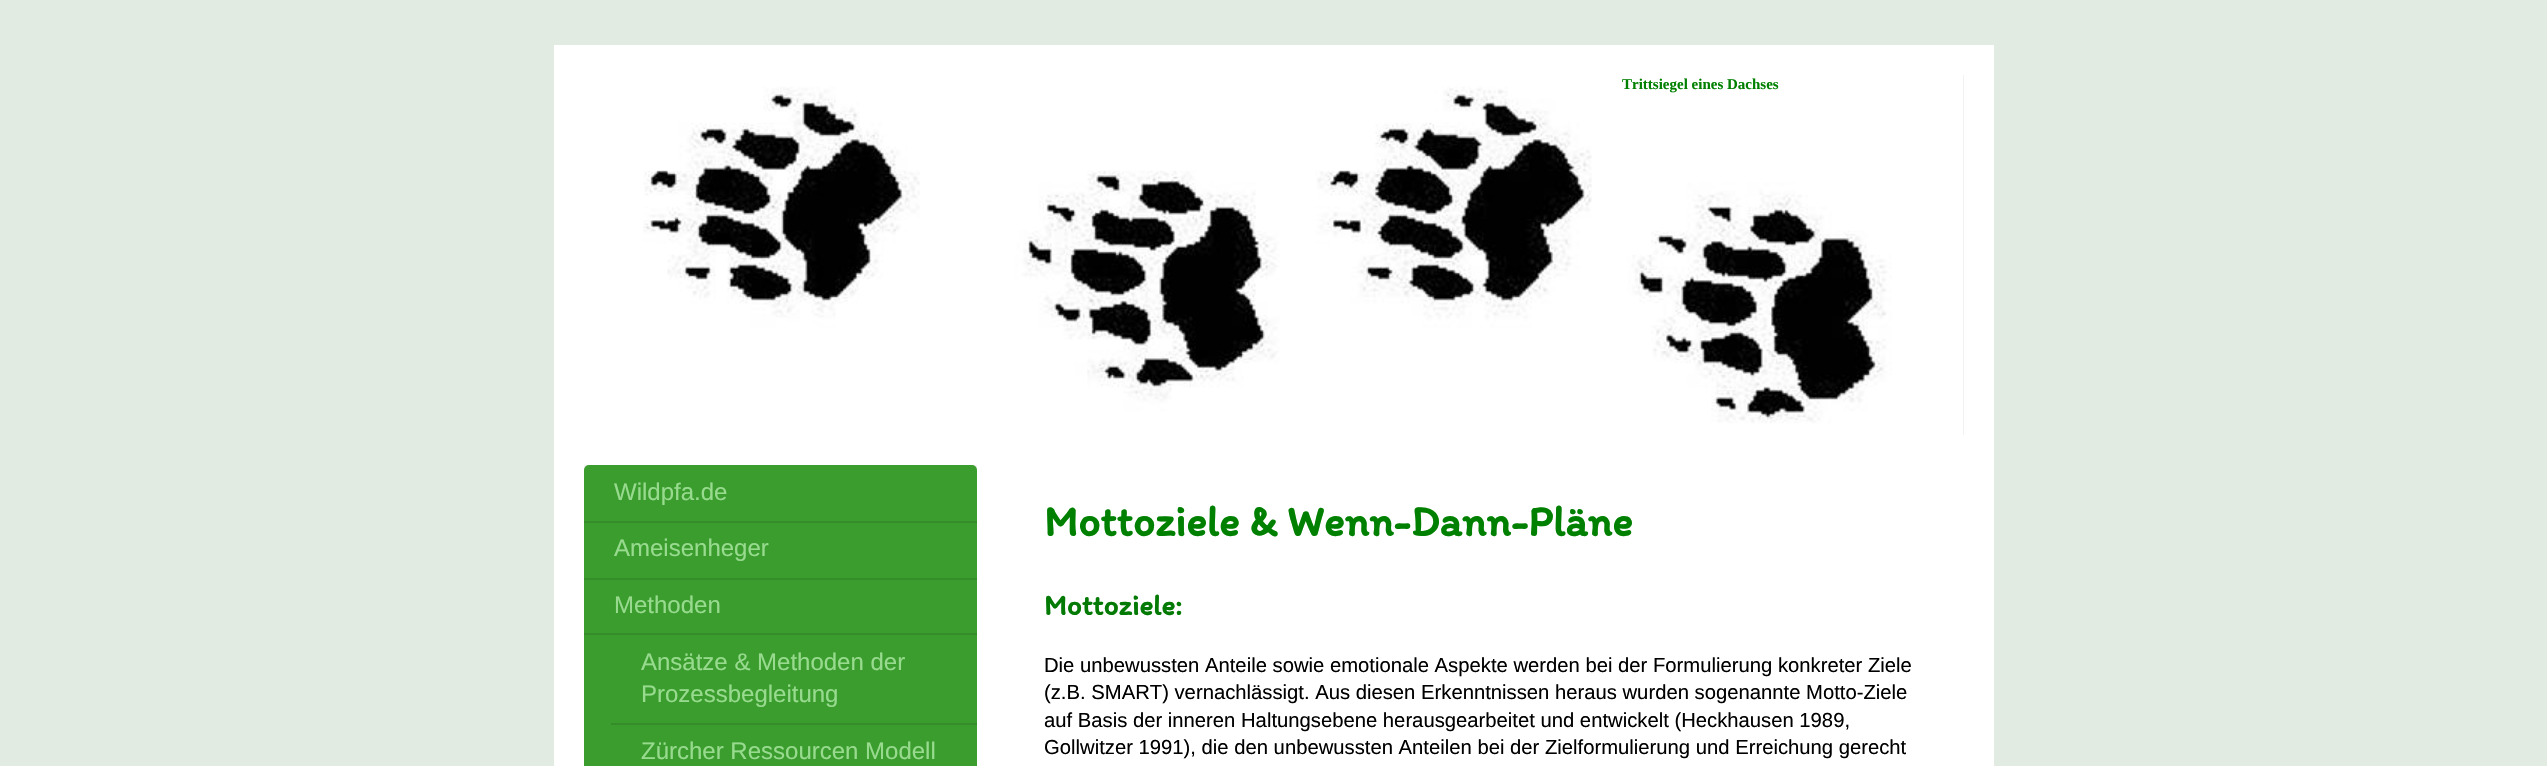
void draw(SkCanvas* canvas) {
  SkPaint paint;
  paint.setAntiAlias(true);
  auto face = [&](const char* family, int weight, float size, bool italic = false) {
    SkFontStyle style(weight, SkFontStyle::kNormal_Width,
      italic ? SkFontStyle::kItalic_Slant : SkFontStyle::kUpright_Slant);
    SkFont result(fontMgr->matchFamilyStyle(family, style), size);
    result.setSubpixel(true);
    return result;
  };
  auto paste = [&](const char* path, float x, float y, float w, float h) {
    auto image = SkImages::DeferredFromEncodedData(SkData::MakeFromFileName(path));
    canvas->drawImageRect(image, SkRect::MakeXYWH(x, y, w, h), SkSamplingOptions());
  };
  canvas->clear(0xffe2ebe2);
  paint.setColor(0xffffffff);
  canvas->drawRect(SkRect::MakeXYWH(554, 45, 1440, 721), paint);
  paint.setColor(0xffeeeeee);
  canvas->drawRect(SkRect::MakeXYWH(1963, 75, 1, 360), paint);
  paste("img/1.png", 584, 75, 1380, 360);
  paint.setColor(0xfff5f5f5);
  canvas->drawRect(SkRect::MakeXYWH(584, 465, 393, 5), paint);
  paint.setColor(0xff3a9d2d);
  canvas->drawRoundRect(SkRect::MakeXYWH(584, 465, 393, 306), 5, 5, paint);
  {
    const struct { float x, y, w, h; SkColor color; } items[] = {
      {584, 521, 393, 2, 0xff348d29},
      {584, 578, 393, 2, 0xff348d29},
      {584, 633, 393, 2, 0xff348d29},
      {611, 723, 366, 2, 0xff348d29},
    };
    for (auto [x, y, w, h, color] : items) {
      paint.setColor(color);
      canvas->drawRect(SkRect::MakeXYWH(x, y, w, h), paint);
    }
  }
  auto f0 = face("Liberation Serif", 700, 15);
  paint.setColor(0xff008000);
  canvas->drawString("Trittsiegel eines Dachses", 1622, 89, f0, paint);
  auto f1 = face("Liberation Sans", 400, 24);
  paint.setColor(0xff98db8f);
  {
    const struct { const char* s; float x, y; } items[] = {
      {"Wildpfa.de", 614, 500},
      {"Ameisenheger", 614, 556},
      {"Methoden", 614, 613},
      {"Ansätze & Methoden der", 641, 670},
      {"Prozessbegleitung", 641, 702},
      {"Zürcher Ressourcen Modell", 641, 759},
    };
    for (auto [s, x, y] : items) {
      canvas->drawString(s, x, y, f1, paint);
    }
  }
  auto f2 = face("Itim", 700, 43.25f);
  paint.setColor(0xff008000);
  canvas->drawString("Mottoziele & Wenn-Dann-Pläne", 1044, 536, f2, paint);
  auto f3 = face("Itim", 700, 29);
  paint.setColor(0xff037a04);
  canvas->drawString("Mottoziele:", 1044, 615, f3, paint);
  auto f4 = face("Liberation Sans", 400, 20.25f);
  paint.setColor(0xff000000);
  {
    const struct { const char* s; float x, y; } items[] = {
      {"Die unbewussten Anteile sowie emotionale Aspekte werden bei der Formulierung konkreter Ziele", 1044, 672},
      {"(z.B. SMART) vernachlässigt. Aus diesen Erkenntnissen heraus wurden sogenannte Motto-Ziele", 1044, 699},
      {"auf Basis der inneren Haltungsebene herausgearbeitet und entwickelt (Heckhausen 1989,", 1044, 727},
      {"Gollwitzer 1991), die den unbewussten Anteilen bei der Zielformulierung und Erreichung gerecht", 1044, 754},
    };
    for (auto [s, x, y] : items) {
      canvas->drawString(s, x, y, f4, paint);
    }
  }
}
